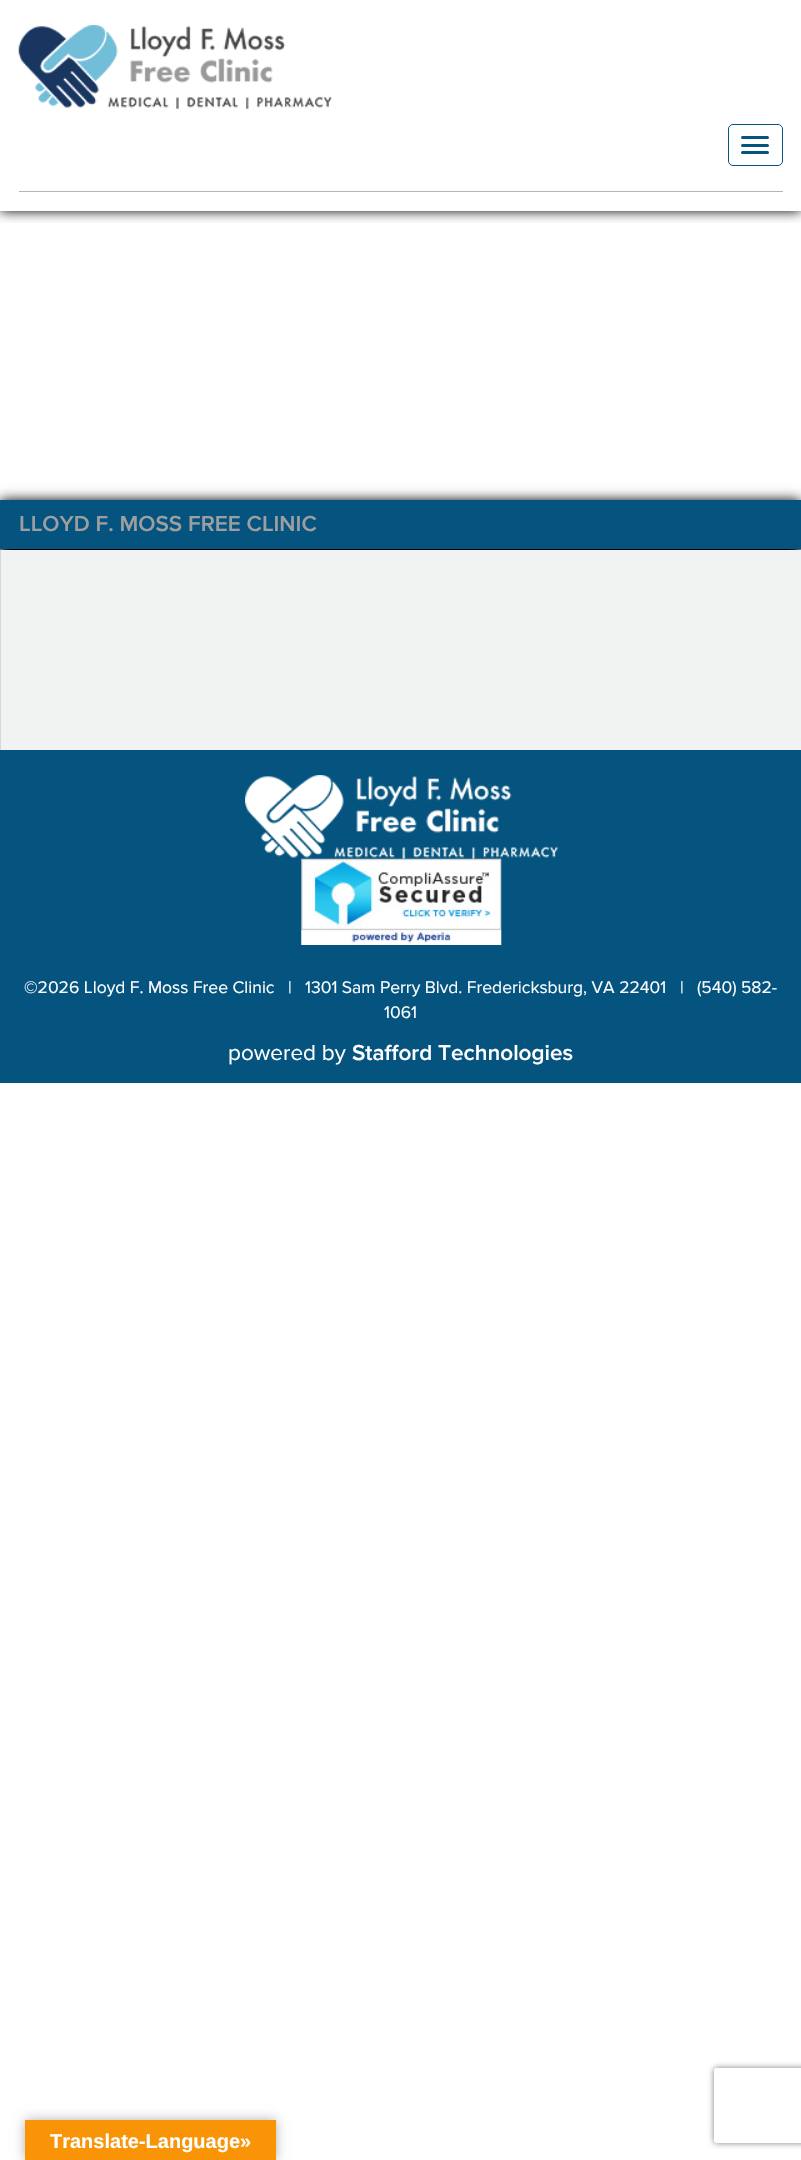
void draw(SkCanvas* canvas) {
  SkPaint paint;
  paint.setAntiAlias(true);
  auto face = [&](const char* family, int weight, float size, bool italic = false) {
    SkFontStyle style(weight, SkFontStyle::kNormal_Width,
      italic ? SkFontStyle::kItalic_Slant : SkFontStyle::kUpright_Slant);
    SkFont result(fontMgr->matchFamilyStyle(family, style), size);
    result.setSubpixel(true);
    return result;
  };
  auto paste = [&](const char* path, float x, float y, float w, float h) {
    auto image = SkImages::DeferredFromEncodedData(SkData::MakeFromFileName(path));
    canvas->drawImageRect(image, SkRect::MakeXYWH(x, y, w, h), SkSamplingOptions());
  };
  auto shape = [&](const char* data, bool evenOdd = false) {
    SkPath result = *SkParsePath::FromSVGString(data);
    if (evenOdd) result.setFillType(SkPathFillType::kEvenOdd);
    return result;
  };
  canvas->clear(0xffffffff);
  canvas->save();
  canvas->clipRect(SkRect::MakeXYWH(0, 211, 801, 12));
  paint.setColor(0xff000000);
  paint.setMaskFilter(SkMaskFilter::MakeBlur(kNormal_SkBlurStyle, 6));
  canvas->drawRect(SkRect::MakeXYWH(0, 0, 801, 211), paint);
  paint.setMaskFilter(nullptr);
  canvas->restore();
  paste("img/1.png", 18, 25, 314, 84);
  paint.setStroke(true);
  paint.setStrokeWidth(1);
  paint.setColor(0xff05547f);
  canvas->drawRoundRect(SkRect::MakeXYWH(728.5f, 124.5f, 54, 41), 4.5f, 4.5f, paint);
  paint.setStroke(false);
  canvas->drawRoundRect(SkRect::MakeXYWH(741, 136, 28, 3), 1.5f, 1.5f, paint);
  canvas->drawRoundRect(SkRect::MakeXYWH(741, 144, 28, 3), 1.5f, 1.5f, paint);
  canvas->drawRoundRect(SkRect::MakeXYWH(741, 151, 28, 3), 1.5f, 1.5f, paint);
  paint.setColor(0xffadb7bd);
  canvas->drawRect(SkRect::MakeXYWH(19, 191, 764, 1), paint);
  paint.setColor(0xff000000);
  paint.setMaskFilter(SkMaskFilter::MakeBlur(kNormal_SkBlurStyle, 6));
  canvas->drawRect(SkRect::MakeXYWH(0, 500, 801, 250), paint);
  paint.setMaskFilter(nullptr);
  {
    const struct { float x, y, w, h; SkColor color; } items[] = {
      {0, 500, 801, 49, 0xff05547f},
      {1, 550, 800, 200, 0xfff1f2f2},
      {0, 550, 1, 200, 0xffd7d8da},
      {0, 750, 801, 333, 0xff05547f},
    };
    for (auto [x, y, w, h, color] : items) {
      paint.setColor(color);
      canvas->drawRect(SkRect::MakeXYWH(x, y, w, h), paint);
    }
  }
  paste("img/2.png", 245, 775, 313, 84);
  paste("img/3.png", 301, 858, 201, 87);
  paint.setColor(0x4d000000);
  paint.setMaskFilter(SkMaskFilter::MakeBlur(kNormal_SkBlurStyle, 5.5f));
  canvas->drawRect(SkRect::MakeXYWH(25, 2120, 251, 40), paint);
  paint.setMaskFilter(nullptr);
  paint.setColor(0xfff89406);
  canvas->drawRect(SkRect::MakeXYWH(25, 2120, 251, 40), paint);
  canvas->save();
  canvas->clipPath(shape("M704 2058H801V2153H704ZM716.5 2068H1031.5C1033 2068 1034 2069 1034 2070.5V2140.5C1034 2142 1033 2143 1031.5 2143H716.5C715 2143 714 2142 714 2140.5V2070.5C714 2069 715 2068 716.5 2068Z", true), true);
  paint.setColor(0xff808080);
  paint.setMaskFilter(SkMaskFilter::MakeBlur(kNormal_SkBlurStyle, 3));
  canvas->drawRoundRect(SkRect::MakeXYWH(714, 2068, 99, 75), 2.5f, 2.5f, paint);
  paint.setMaskFilter(nullptr);
  canvas->restore();
  auto f0 = face("Proxima Nova", 600, 22.5f);
  paint.setColor(0xff9c9ea0);
  canvas->drawString("LLOYD F. MOSS FREE CLINIC", 19, 531, f0, paint);
  auto f1 = face("Proxima Nova", 400, 17.5f);
  paint.setColor(0xffffffff);
  {
    const struct { const char* s; float x, y; } items[] = {
      {"©2026 Lloyd F. Moss Free Clinic", 24, 993},
      {"|", 288, 993},
      {"1301 Sam Perry Blvd. Fredericksburg, VA 22401", 305, 993},
      {"|", 680, 993},
      {"(540) 582-", 697, 993},
      {"1061", 384, 1018},
    };
    for (auto [s, x, y] : items) {
      canvas->drawString(s, x, y, f1, paint);
    }
  }
  auto f2 = face("Proxima Nova", 400, 22.5f);
  canvas->drawString("powered by", 228, 1060, f2, paint);
  canvas->drawString("Stafford Technologies", 352, 1060, f0, paint);
  auto f3 = face("Liberation Sans", 700, 20);
  canvas->drawString("Translate-Language»", 50, 2148, f3, paint);
}
